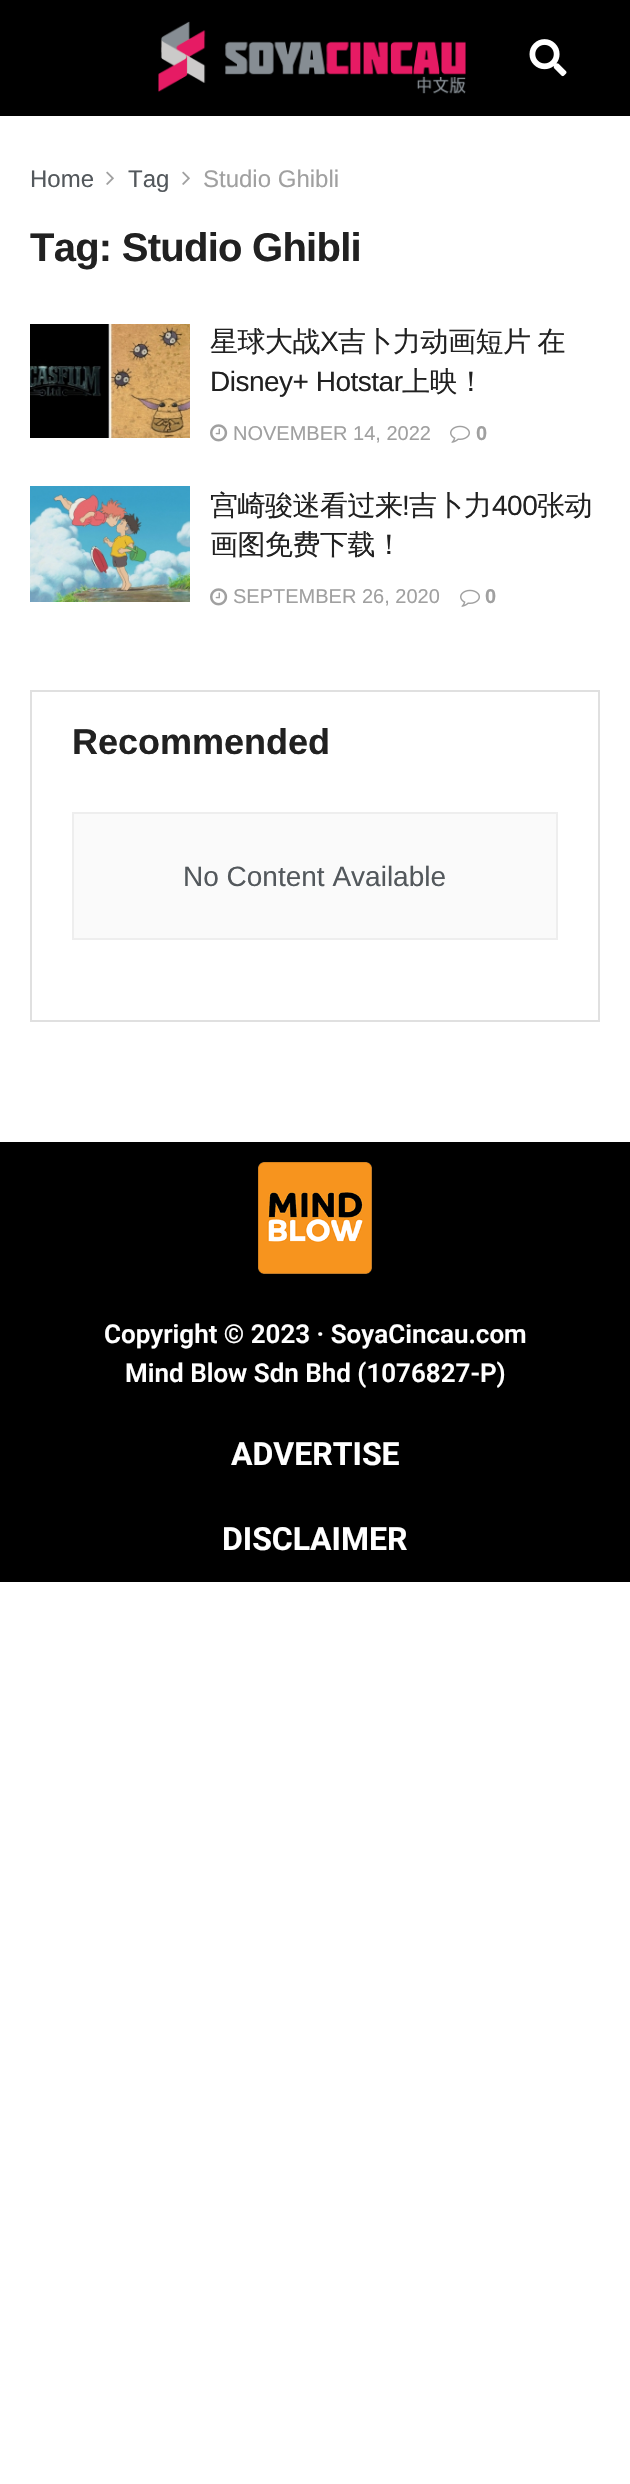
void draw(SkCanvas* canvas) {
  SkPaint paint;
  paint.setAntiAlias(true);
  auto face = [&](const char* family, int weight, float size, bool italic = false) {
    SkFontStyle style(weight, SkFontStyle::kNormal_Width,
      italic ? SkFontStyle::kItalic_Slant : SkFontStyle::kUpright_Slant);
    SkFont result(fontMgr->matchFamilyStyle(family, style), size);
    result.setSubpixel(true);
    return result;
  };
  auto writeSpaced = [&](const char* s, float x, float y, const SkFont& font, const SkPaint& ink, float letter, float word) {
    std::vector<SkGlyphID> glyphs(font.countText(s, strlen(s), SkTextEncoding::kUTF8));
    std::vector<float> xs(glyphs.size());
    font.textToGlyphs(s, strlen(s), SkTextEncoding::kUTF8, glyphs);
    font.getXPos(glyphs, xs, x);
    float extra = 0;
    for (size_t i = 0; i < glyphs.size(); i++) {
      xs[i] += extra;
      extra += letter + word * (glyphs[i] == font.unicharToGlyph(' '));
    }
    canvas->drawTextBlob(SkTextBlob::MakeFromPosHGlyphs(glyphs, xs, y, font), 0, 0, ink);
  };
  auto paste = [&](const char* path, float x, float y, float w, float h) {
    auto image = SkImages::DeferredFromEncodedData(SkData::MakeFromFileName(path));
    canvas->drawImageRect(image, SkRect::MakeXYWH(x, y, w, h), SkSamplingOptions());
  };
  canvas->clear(0xffffffff);
  paint.setColor(0xff000000);
  canvas->drawRect(SkRect::MakeXYWH(0, 0, 630, 116), paint);
  paste("img/1.png", 158, 21, 308, 73);
  paste("img/2.png", 529, 39, 38, 38);
  paste("img/3.png", 106, 171, 8, 14);
  paste("img/3.png", 182, 171, 8, 14);
  paste("img/4.png", 30, 324, 160, 114);
  paste("img/5.png", 210, 424, 18, 18);
  paste("img/6.png", 450, 425, 20, 18);
  paste("img/7.png", 30, 486, 160, 116);
  paste("img/5.png", 210, 588, 18, 18);
  paste("img/6.png", 460, 589, 20, 18);
  paint.setStroke(true);
  paint.setStrokeWidth(2);
  paint.setColor(0xffe0e0e0);
  canvas->drawRect(SkRect::MakeXYWH(31, 691, 568, 330), paint);
  paint.setStroke(false);
  paint.setColor(0xfffafafa);
  canvas->drawRect(SkRect::MakeXYWH(73, 813, 484, 126), paint);
  paint.setStroke(true);
  paint.setColor(0xffeeeeee);
  canvas->drawRect(SkRect::MakeXYWH(73, 813, 484, 126), paint);
  paint.setStroke(false);
  paint.setColor(0xff000000);
  canvas->drawRect(SkRect::MakeXYWH(0, 1142, 630, 440), paint);
  paste("img/8.png", 258, 1162, 114, 112);
  auto f0 = face("Liberation Sans", 400, 24);
  paint.setColor(0xff53585c);
  canvas->drawString("Home", 30, 187, f0, paint);
  canvas->drawString("Tag", 128, 187, f0, paint);
  paint.setColor(0xffa0a0a0);
  canvas->drawString("Studio Ghibli", 203, 187, f0, paint);
  auto f1 = face("Liberation Sans", 700, 40);
  paint.setColor(0xff212121);
  writeSpaced("Tag: Studio Ghibli", 30, 261, f1, paint, -0.75f, 0);
  auto f2 = face("WenQuanYi Zen Hei", 500, 28);
  writeSpaced("星球大战", 210, 351, f2, paint, -0.5f, 0);
  auto f3 = face("Liberation Sans", 400, 28);
  writeSpaced("X", 320, 351, f3, paint, -0.5f, 0);
  writeSpaced("吉卜力动画短片 在", 338, 351, f2, paint, -0.5f, -1);
  writeSpaced("Disney+ Hotstar", 210, 391, f3, paint, -0.5f, 0);
  writeSpaced("上映！", 402, 391, f2, paint, -0.5f, 0);
  auto f4 = face("Liberation Sans", 400, 20);
  paint.setColor(0xffa0a0a0);
  canvas->drawString("NOVEMBER 14, 2022", 233, 440, f4, paint);
  auto f5 = face("Liberation Sans", 700, 20);
  canvas->drawString("0", 476, 440, f5, paint);
  paint.setColor(0xff212121);
  writeSpaced("宫崎骏迷看过来", 210, 515, f2, paint, -0.5f, 0);
  writeSpaced("!", 402, 515, f3, paint, -0.5f, 0);
  writeSpaced("吉卜力", 409, 515, f2, paint, -0.5f, 0);
  writeSpaced("400", 492, 515, f3, paint, -0.5f, 0);
  writeSpaced("张动", 537, 515, f2, paint, -0.5f, 0);
  writeSpaced("画图免费下载！", 210, 554, f2, paint, -0.5f, 0);
  paint.setColor(0xffa0a0a0);
  canvas->drawString("SEPTEMBER 26, 2020", 233, 603, f4, paint);
  canvas->drawString("0", 485, 603, f5, paint);
  auto f6 = face("Liberation Sans", 700, 36);
  paint.setColor(0xff212121);
  canvas->drawString("Recommended", 72, 754, f6, paint);
  paint.setColor(0xff53585c);
  canvas->drawString("No Content Available", 183, 886, f3, paint);
  auto f7 = face("Roboto", 600, 26);
  paint.setColor(0xffffffff);
  canvas->drawString("Copyright © 2023 · SoyaCincau.com", 104, 1343, f7, paint);
  canvas->drawString("Mind Blow Sdn Bhd (1076827-P)", 125, 1382, f7, paint);
  auto f8 = face("Roboto", 700, 32);
  canvas->drawString("ADVERTISE", 231, 1465, f8, paint);
  canvas->drawString("DISCLAIMER", 222, 1550, f8, paint);
}
